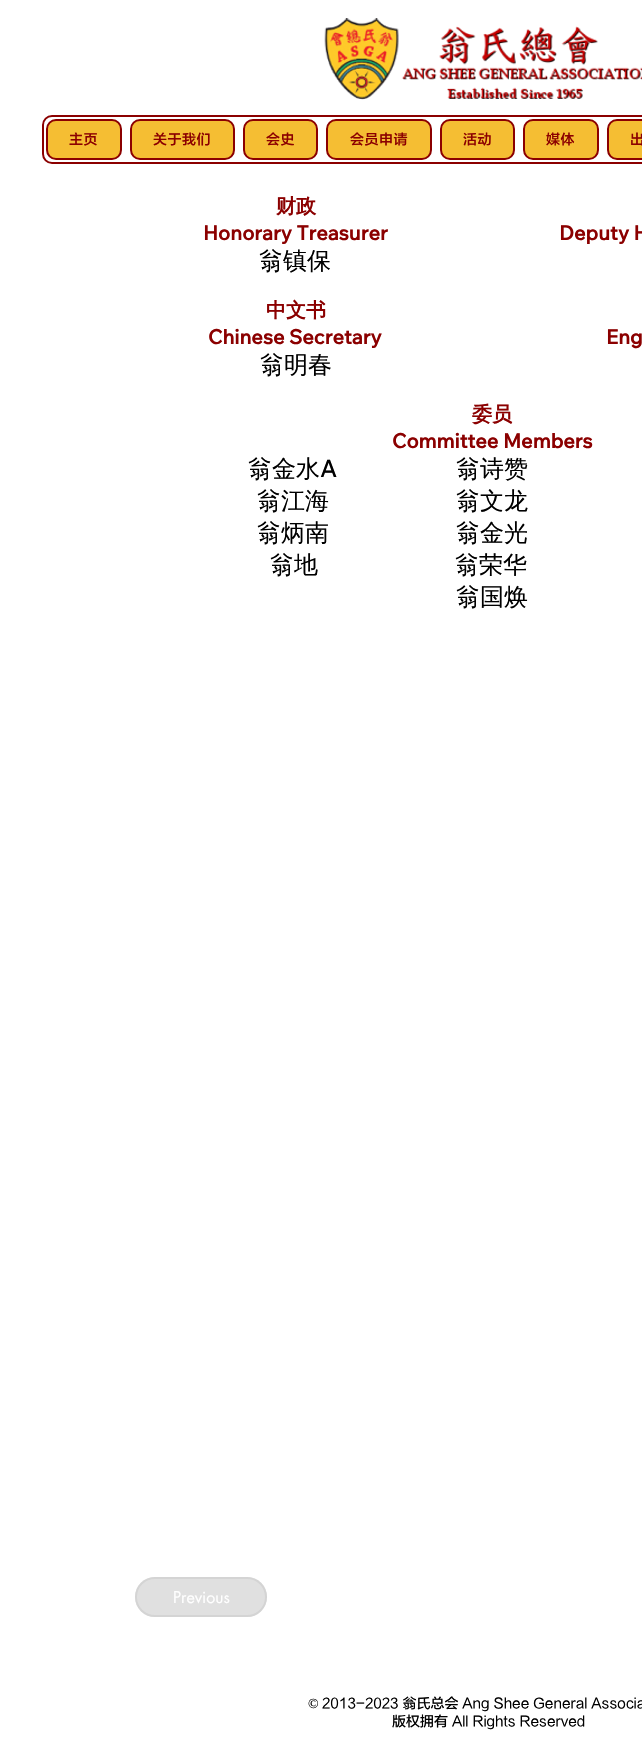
void draw(SkCanvas* canvas) {
  SkPaint paint;
  paint.setAntiAlias(true);
  auto face = [&](const char* family, int weight, float size, bool italic = false) {
    SkFontStyle style(weight, SkFontStyle::kNormal_Width,
      italic ? SkFontStyle::kItalic_Slant : SkFontStyle::kUpright_Slant);
    SkFont result(fontMgr->matchFamilyStyle(family, style), size);
    result.setSubpixel(true);
    return result;
  };
  auto writeSpaced = [&](const char* s, float x, float y, const SkFont& font, const SkPaint& ink, float letter, float word) {
    std::vector<SkGlyphID> glyphs(font.countText(s, strlen(s), SkTextEncoding::kUTF8));
    std::vector<float> xs(glyphs.size());
    font.textToGlyphs(s, strlen(s), SkTextEncoding::kUTF8, glyphs);
    font.getXPos(glyphs, xs, x);
    float extra = 0;
    for (size_t i = 0; i < glyphs.size(); i++) {
      xs[i] += extra;
      extra += letter + word * (glyphs[i] == font.unicharToGlyph(' '));
    }
    canvas->drawTextBlob(SkTextBlob::MakeFromPosHGlyphs(glyphs, xs, y, font), 0, 0, ink);
  };
  auto paste = [&](const char* path, float x, float y, float w, float h) {
    auto image = SkImages::DeferredFromEncodedData(SkData::MakeFromFileName(path));
    canvas->drawImageRect(image, SkRect::MakeXYWH(x, y, w, h), SkSamplingOptions());
  };
  canvas->clear(0xffffffff);
  paste("img/1.png", 324, 18, 318, 82);
  paint.setStroke(true);
  paint.setStrokeWidth(2);
  paint.setColor(0xff8b0000);
  canvas->drawRoundRect(SkRect::MakeXYWH(43, 116, 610, 47), 9, 9, paint);
  paint.setStroke(false);
  paint.setColor(0xfff5be33);
  canvas->drawRoundRect(SkRect::MakeXYWH(47, 120, 74, 39), 9, 9, paint);
  paint.setStroke(true);
  paint.setColor(0xff8b0000);
  canvas->drawRoundRect(SkRect::MakeXYWH(47, 120, 74, 39), 9, 9, paint);
  paint.setStroke(false);
  paint.setColor(0xfff5be33);
  canvas->drawRoundRect(SkRect::MakeXYWH(131, 120, 103, 39), 9, 9, paint);
  paint.setStroke(true);
  paint.setColor(0xff8b0000);
  canvas->drawRoundRect(SkRect::MakeXYWH(131, 120, 103, 39), 9, 9, paint);
  paint.setStroke(false);
  paint.setColor(0xfff5be33);
  canvas->drawRoundRect(SkRect::MakeXYWH(244, 120, 73, 39), 9, 9, paint);
  paint.setStroke(true);
  paint.setColor(0xff8b0000);
  canvas->drawRoundRect(SkRect::MakeXYWH(244, 120, 73, 39), 9, 9, paint);
  paint.setStroke(false);
  paint.setColor(0xfff5be33);
  canvas->drawRoundRect(SkRect::MakeXYWH(327, 120, 104, 39), 9, 9, paint);
  paint.setStroke(true);
  paint.setColor(0xff8b0000);
  canvas->drawRoundRect(SkRect::MakeXYWH(327, 120, 104, 39), 9, 9, paint);
  paint.setStroke(false);
  paint.setColor(0xfff5be33);
  canvas->drawRoundRect(SkRect::MakeXYWH(441, 120, 73, 39), 9, 9, paint);
  paint.setStroke(true);
  paint.setColor(0xff8b0000);
  canvas->drawRoundRect(SkRect::MakeXYWH(441, 120, 73, 39), 9, 9, paint);
  paint.setStroke(false);
  paint.setColor(0xfff5be33);
  canvas->drawRoundRect(SkRect::MakeXYWH(524, 120, 74, 39), 9, 9, paint);
  paint.setStroke(true);
  paint.setColor(0xff8b0000);
  canvas->drawRoundRect(SkRect::MakeXYWH(524, 120, 74, 39), 9, 9, paint);
  paint.setStroke(false);
  paint.setColor(0xfff5be33);
  canvas->drawRoundRect(SkRect::MakeXYWH(608, 120, 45, 39), 9, 9, paint);
  paint.setStroke(true);
  paint.setColor(0xff8b0000);
  canvas->drawRoundRect(SkRect::MakeXYWH(608, 120, 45, 39), 9, 9, paint);
  paint.setStroke(false);
  paint.setColor(0xffe0e0e0);
  canvas->drawRoundRect(SkRect::MakeXYWH(135, 1577, 132, 40), 20, 20, paint);
  paint.setStroke(true);
  paint.setColor(0x99cccccc);
  canvas->drawRoundRect(SkRect::MakeXYWH(136, 1578, 130, 38), 19, 19, paint);
  auto f0 = face("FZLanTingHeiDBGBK", 400, 14);
  paint.setStroke(false);
  paint.setColor(0xff8b0000);
  {
    const struct { const char* s; float x, y; } items[] = {
      {"主页", 69, 144},
      {"关于我们", 153, 144},
      {"会史", 266, 144},
      {"会员申请", 350, 144},
      {"活动", 463, 144},
      {"媒体", 546, 144},
      {"出", 630, 144},
    };
    for (auto [s, x, y] : items) {
      writeSpaced(s, x, y, f0, paint, 0.5f, 0);
    }
  }
  auto f1 = face("WenQuanYi Zen Hei", 700, 20);
  canvas->drawString("财政", 276, 213, f1, paint);
  auto f2 = face("Wix Madefor Text", 700, 20);
  canvas->drawString("Honorary Treasurer", 203, 240, f2, paint);
  canvas->drawString("Deputy H", 559, 240, f2, paint);
  auto f3 = face("WenQuanYi Zen Hei", 500, 24);
  paint.setColor(0xff000000);
  canvas->drawString("翁镇保", 259, 269, f3, paint);
  paint.setColor(0xff8b0000);
  canvas->drawString("中文书", 266, 317, f1, paint);
  canvas->drawString("Chinese Secretary", 208, 344, f2, paint);
  canvas->drawString("Eng", 606, 344, f2, paint);
  paint.setColor(0xff000000);
  canvas->drawString("翁明春", 260, 373, f3, paint);
  paint.setColor(0xff8b0000);
  canvas->drawString("委员", 472, 421, f1, paint);
  canvas->drawString("Committee Members", 392, 448, f2, paint);
  paint.setColor(0xff000000);
  canvas->drawString("翁金水", 248, 477, f3, paint);
  auto f4 = face("Wix Madefor Text", 500, 24);
  canvas->drawString("A", 320, 477, f4, paint);
  {
    const struct { const char* s; float x, y; } items[] = {
      {"翁诗赞", 456, 477},
      {"翁江海", 257, 509},
      {"翁文龙", 456, 509},
      {"翁炳南", 257, 541},
      {"翁金光", 456, 541},
      {"翁地", 270, 573},
      {"翁荣华", 455, 573},
      {"翁国焕", 456, 605},
    };
    for (auto [s, x, y] : items) {
      canvas->drawString(s, x, y, f3, paint);
    }
  }
  auto f5 = face("futura", 400, 16);
  paint.setColor(0xffffffff);
  canvas->drawString("Previous", 173, 1603, f5, paint);
  auto f6 = face("Liberation Serif", 400, 14);
  paint.setColor(0xff000000);
  canvas->drawString("©", 308, 1708, f6, paint);
  auto f7 = face("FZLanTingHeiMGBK", 400, 14);
  canvas->drawString("2013-2023 翁氏总会 Ang Shee General Associa", 322, 1708, f7, paint);
  canvas->drawString("版权拥有 All Rights Reserved", 392, 1726, f7, paint);
}
